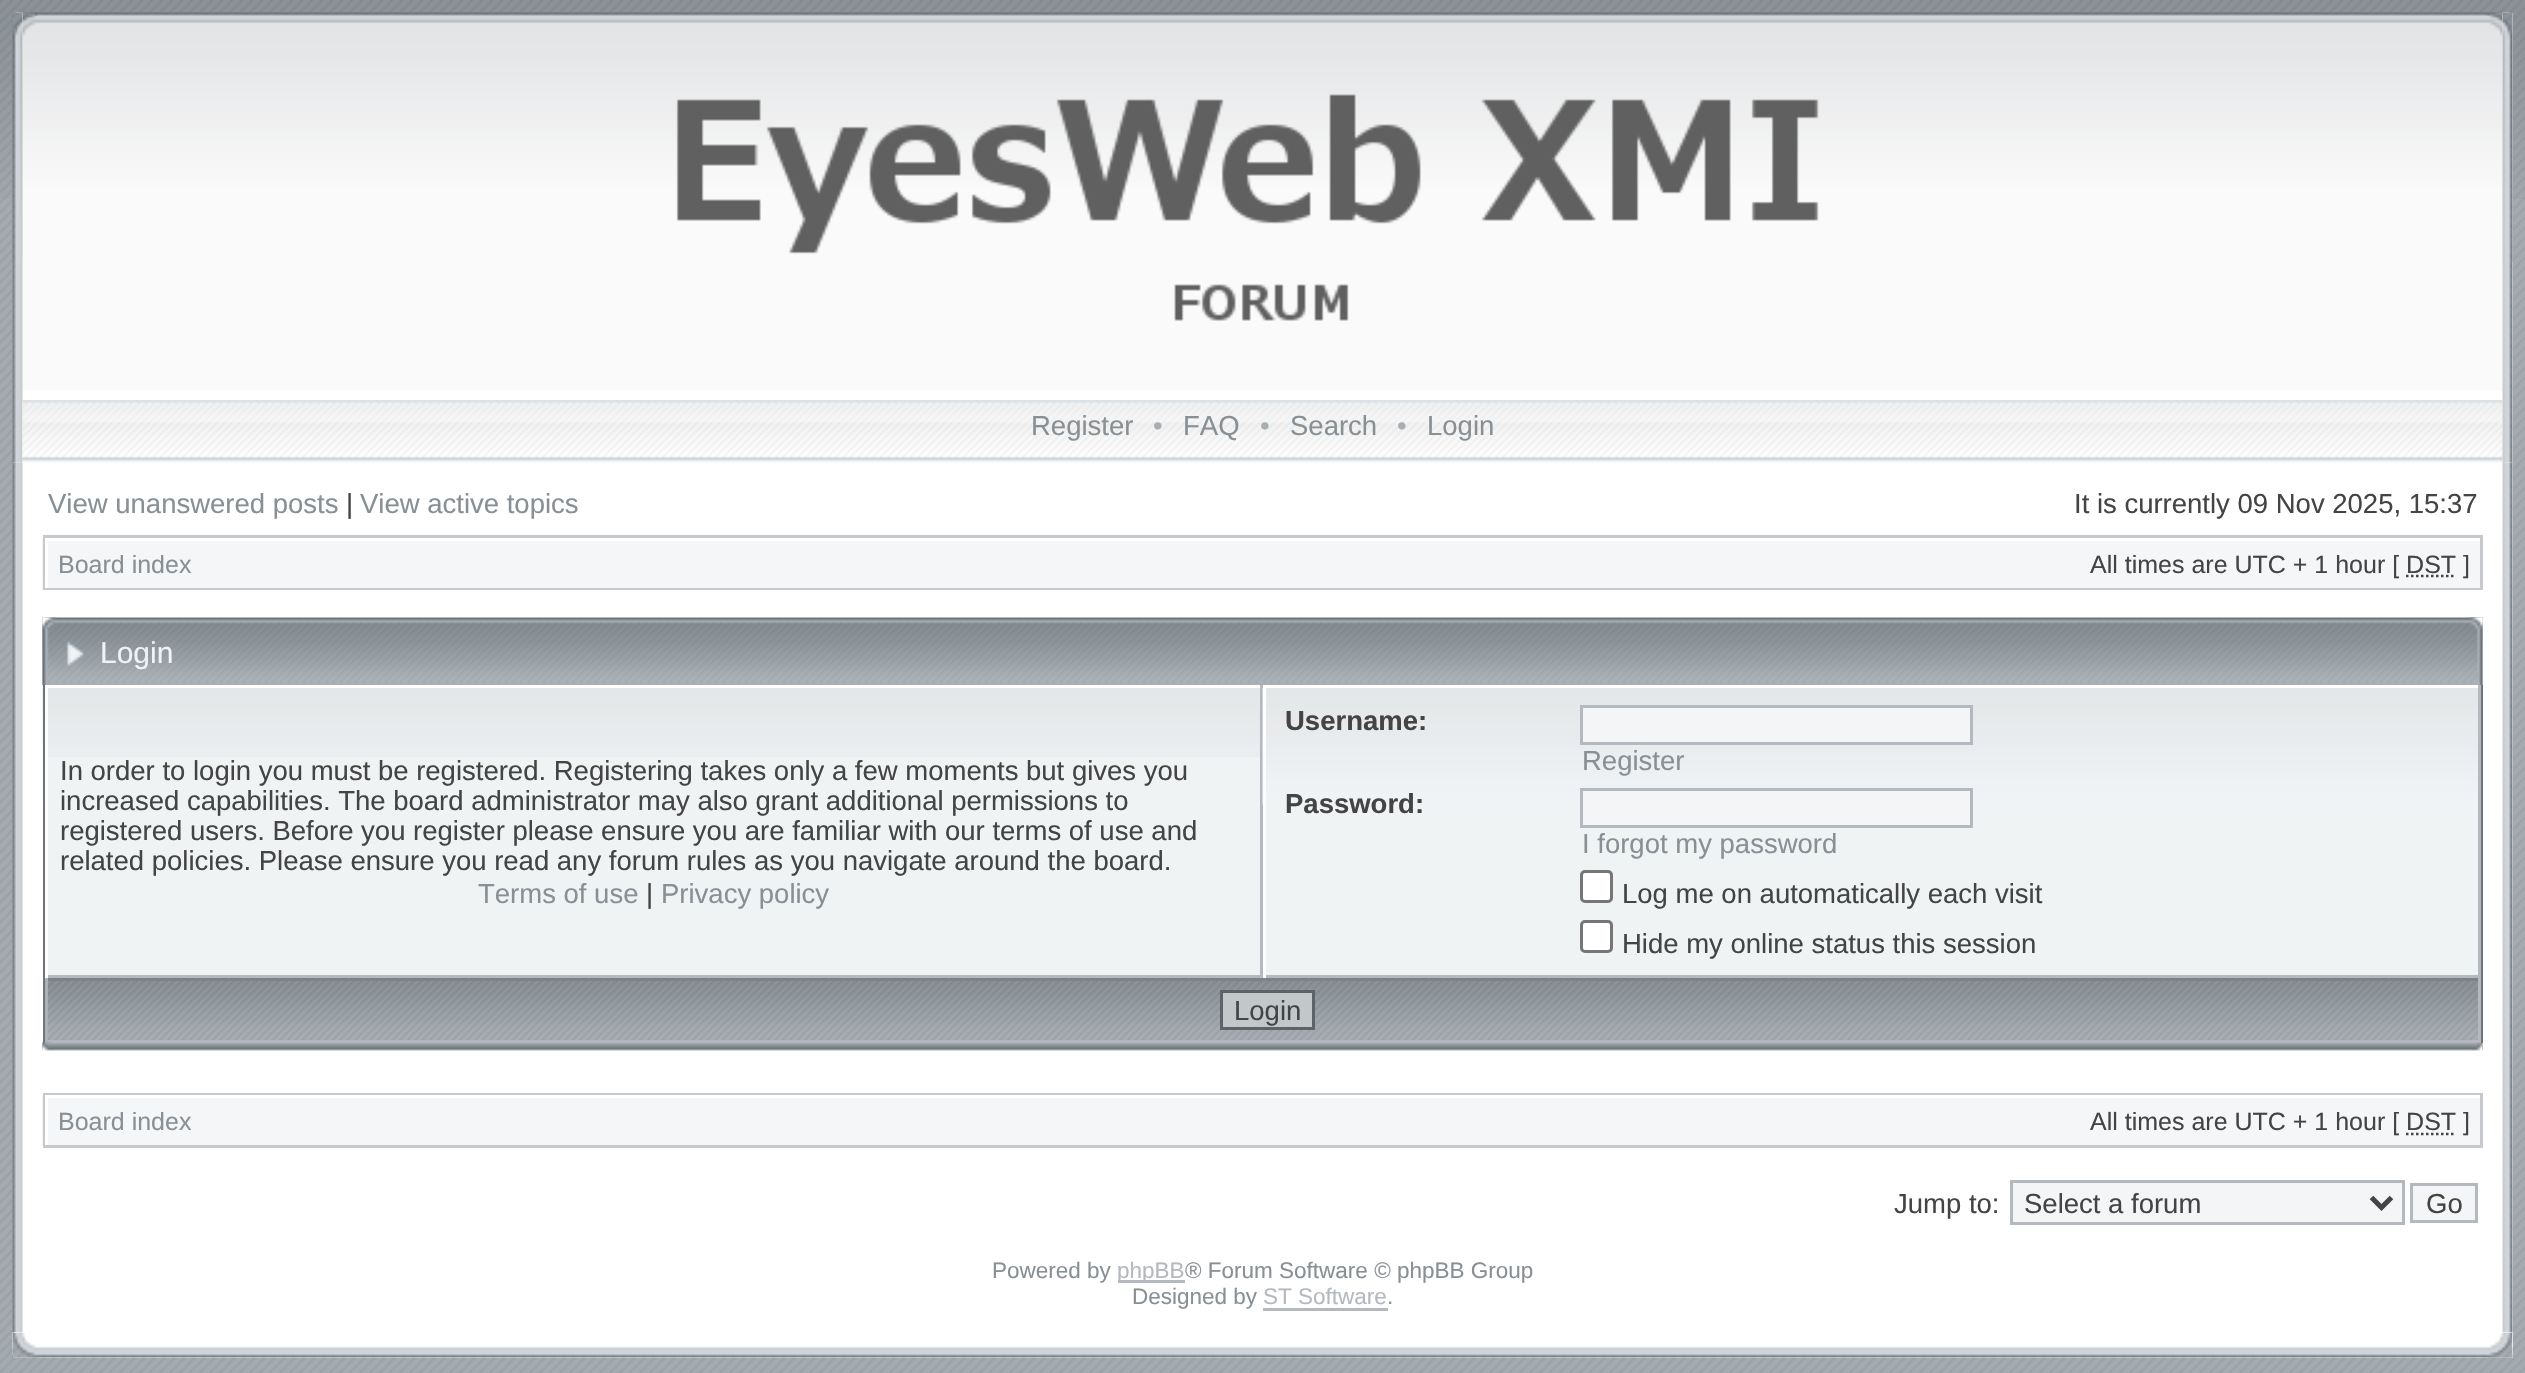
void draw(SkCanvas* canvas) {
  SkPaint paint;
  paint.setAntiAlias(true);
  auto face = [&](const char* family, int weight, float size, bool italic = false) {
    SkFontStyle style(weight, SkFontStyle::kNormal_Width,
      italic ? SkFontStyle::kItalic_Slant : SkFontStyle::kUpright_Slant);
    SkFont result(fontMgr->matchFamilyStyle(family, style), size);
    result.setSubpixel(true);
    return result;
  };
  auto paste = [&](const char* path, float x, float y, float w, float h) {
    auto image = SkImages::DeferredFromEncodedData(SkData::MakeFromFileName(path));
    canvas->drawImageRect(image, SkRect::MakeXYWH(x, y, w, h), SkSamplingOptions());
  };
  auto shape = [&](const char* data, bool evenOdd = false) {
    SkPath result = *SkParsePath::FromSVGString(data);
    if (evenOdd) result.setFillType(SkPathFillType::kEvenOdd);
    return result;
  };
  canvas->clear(0xffffffff);
  paste("img/1.png", 0, 199, 2525, 1174);
  paste("img/2.png", 0, 0, 2525, 199);
  paint.setColor(0xffffffff);
  canvas->drawRect(SkRect::MakeXYWH(13, 13, 2500, 1345), paint);
  paste("img/5.png", 22, 12, 2481, 378);
  paste("img/6.png", 22, 12, 16, 25);
  paste("img/3.png", 12, 12, 11, 451);
  paste("img/4.png", 12, 12, 11, 250);
  paste("img/7.png", 2487, 12, 16, 26);
  paste("img/8.png", 676, 94, 1143, 227);
  paste("img/9.png", 22, 400, 2481, 63);
  paste("img/10.png", 2502, 12, 11, 451);
  paste("img/11.png", 2502, 12, 11, 251);
  paste("img/12.png", 12, 462, 11, 871);
  paste("img/13.png", 42, 537, 1, 53);
  paint.setStroke(true);
  paint.setStrokeWidth(3);
  paint.setColor(0xffc6cacf);
  canvas->drawRect(SkRect::MakeXYWH(44.5f, 536.5f, 2437, 52), paint);
  paint.setStroke(false);
  {
    const struct { float x, y, w, h; SkColor color; } items[] = {
      {48, 541, 2432, 47, 0xfff4f6f8},
      {45, 538, 1, 3, 0xffffffff},
      {45, 538, 3, 50, 0xffffffff},
    };
    for (auto [x, y, w, h, color] : items) {
      paint.setColor(color);
      canvas->drawRect(SkRect::MakeXYWH(x, y, w, h), paint);
    }
  }
  paint.setStroke(true);
  paint.setStrokeWidth(2.5f);
  paint.setColor(0xff444444);
  paint.setPathEffect(SkDashPathEffect::Make({{2.5f, 2.5f}}, 0));
  canvas->drawPath(shape("M2406 576H2456"), paint);
  paint.setPathEffect(nullptr);
  paste("img/14.png", 42, 1042, 2441, 9);
  paste("img/15.png", 42, 617, 2441, 68);
  paste("img/16.png", 42, 617, 43, 68);
  paste("img/17.png", 2469, 617, 14, 68);
  paste("img/18.png", 42, 685, 1, 118);
  paint.setStroke(false);
  {
    const struct { float x, y, w, h; SkColor color; } items[] = {
      {2481, 685, 2, 358, 0xff6e747a},
      {43, 685, 2, 358, 0xff6e747a},
      {48, 757, 1212, 218, 0xfff0f3f4},
    };
    for (auto [x, y, w, h, color] : items) {
      paint.setColor(color);
      canvas->drawRect(SkRect::MakeXYWH(x, y, w, h), paint);
    }
  }
  paste("img/19.png", 48, 688, 1212, 69);
  {
    const struct { float x, y, w, h; SkColor color; } items[] = {
      {1260, 685, 3, 293, 0xffb4b9bf},
      {45, 975, 1218, 3, 0xffb4b9bf},
      {45, 975, 3, 3, 0xffffffff},
      {1266, 805, 1212, 170, 0xfff0f3f4},
    };
    for (auto [x, y, w, h, color] : items) {
      paint.setColor(color);
      canvas->drawRect(SkRect::MakeXYWH(x, y, w, h), paint);
    }
  }
  paste("img/20.png", 1262, 687, 1216, 118);
  {
    const struct { float x, y, w, h; SkColor color; } items[] = {
      {1263, 687, 1217, 1, 0xffffffff},
      {2478, 685, 3, 293, 0xffb4b9bf},
      {1263, 975, 1217, 3, 0xffb4b9bf},
      {1263, 685, 3, 293, 0xffffffff},
    };
    for (auto [x, y, w, h, color] : items) {
      paint.setColor(color);
      canvas->drawRect(SkRect::MakeXYWH(x, y, w, h), paint);
    }
  }
  paint.setColor(0xfff3f5f7);
  canvas->drawRect(SkRect::MakeXYWH(1581.5f, 706.5f, 390, 37), paint);
  paint.setStroke(true);
  paint.setStrokeWidth(3);
  paint.setColor(0xffb4b9bf);
  canvas->drawRect(SkRect::MakeXYWH(1581.5f, 706.5f, 390, 37), paint);
  paint.setStroke(false);
  paint.setColor(0xfff3f5f7);
  canvas->drawRect(SkRect::MakeXYWH(1581.5f, 789.5f, 390, 37), paint);
  paint.setStroke(true);
  paint.setColor(0xffb4b9bf);
  canvas->drawRect(SkRect::MakeXYWH(1581.5f, 789.5f, 390, 37), paint);
  paint.setStroke(false);
  paint.setColor(0xffffffff);
  canvas->drawRoundRect(SkRect::MakeXYWH(1581.5f, 871.5f, 30, 30), 3.5f, 3.5f, paint);
  paint.setStroke(true);
  paint.setColor(0xff767676);
  canvas->drawRoundRect(SkRect::MakeXYWH(1581.5f, 871.5f, 30, 30), 3.5f, 3.5f, paint);
  paint.setStroke(false);
  paint.setColor(0xffffffff);
  canvas->drawRoundRect(SkRect::MakeXYWH(1581.5f, 921.5f, 30, 30), 3.5f, 3.5f, paint);
  paint.setStroke(true);
  paint.setColor(0xff767676);
  canvas->drawRoundRect(SkRect::MakeXYWH(1581.5f, 921.5f, 30, 30), 3.5f, 3.5f, paint);
  paste("img/21.png", 48, 981, 2430, 59);
  paint.setStroke(false);
  {
    const struct { float x, y, w, h; SkColor color; } items[] = {
      {45, 978, 2435, 3, 0xff7c8388},
      {2478, 978, 3, 65, 0xffb4b9bf},
      {45, 1040, 2435, 3, 0xffb4b9bf},
      {45, 978, 3, 65, 0xffacb4b8},
    };
    for (auto [x, y, w, h, color] : items) {
      paint.setColor(color);
      canvas->drawRect(SkRect::MakeXYWH(x, y, w, h), paint);
    }
  }
  paint.setColor(0xffc2c7ca);
  canvas->drawRect(SkRect::MakeXYWH(1221.5f, 991.5f, 92, 37), paint);
  paint.setStroke(true);
  paint.setColor(0xff5c6469);
  canvas->drawRect(SkRect::MakeXYWH(1221.5f, 991.5f, 92, 37), paint);
  paste("img/22.png", 42, 1042, 11, 9);
  paste("img/23.png", 2472, 1042, 11, 9);
  paste("img/24.png", 42, 1095, 1, 53);
  paint.setColor(0xffc6cacf);
  canvas->drawRect(SkRect::MakeXYWH(44.5f, 1094.5f, 2437, 52), paint);
  paint.setStroke(false);
  {
    const struct { float x, y, w, h; SkColor color; } items[] = {
      {48, 1098, 2432, 47, 0xfff4f6f8},
      {45, 1095, 2435, 3, 0xffffffff},
      {45, 1095, 1, 50, 0xffffffff},
    };
    for (auto [x, y, w, h, color] : items) {
      paint.setColor(color);
      canvas->drawRect(SkRect::MakeXYWH(x, y, w, h), paint);
    }
  }
  paint.setStroke(true);
  paint.setStrokeWidth(2.5f);
  paint.setColor(0xff444444);
  paint.setPathEffect(SkDashPathEffect::Make({{2.5f, 2.5f}}, 0));
  canvas->drawPath(shape("M2406 1134H2456"), paint);
  paint.setPathEffect(nullptr);
  paint.setStroke(false);
  paint.setColor(0xfff3f5f7);
  canvas->drawRect(SkRect::MakeXYWH(2011.5f, 1181.5f, 392, 42), paint);
  paint.setStroke(true);
  paint.setStrokeWidth(3);
  paint.setColor(0xffb4b9bf);
  canvas->drawRect(SkRect::MakeXYWH(2011.5f, 1181.5f, 392, 42), paint);
  paint.setStrokeWidth(5);
  paint.setColor(0xff444444);
  canvas->drawPath(shape("M2371.5 1197.5L2381.5 1207.5L2391.5 1197.5"), paint);
  paint.setStroke(false);
  paint.setColor(0xfff3f5f7);
  canvas->drawRect(SkRect::MakeXYWH(2411.5f, 1184.5f, 65, 37), paint);
  paint.setStroke(true);
  paint.setStrokeWidth(3);
  paint.setColor(0xffb4b9bf);
  canvas->drawRect(SkRect::MakeXYWH(2411.5f, 1184.5f, 65, 37), paint);
  paint.setStroke(false);
  canvas->drawRect(SkRect::MakeXYWH(1118, 1280, 67, 3), paint);
  canvas->drawRect(SkRect::MakeXYWH(1263, 1308, 125, 3), paint);
  paste("img/25.png", 2502, 462, 11, 871);
  paste("img/26.png", 12, 1332, 2501, 26);
  paste("img/27.png", 12, 1332, 26, 26);
  paste("img/28.png", 2487, 1332, 26, 26);
  auto f0 = face("Liberation Sans", 400, 27.5f);
  paint.setColor(0xff889095);
  canvas->drawString("Register", 1031, 435, f0, paint);
  paint.setColor(0xffa8afb3);
  canvas->drawString("•", 1153, 435, f0, paint);
  paint.setColor(0xff889095);
  canvas->drawString("FAQ", 1183, 435, f0, paint);
  paint.setColor(0xffa8afb3);
  canvas->drawString("•", 1260, 435, f0, paint);
  paint.setColor(0xff889095);
  canvas->drawString("Search", 1290, 435, f0, paint);
  paint.setColor(0xffa8afb3);
  canvas->drawString("•", 1397, 435, f0, paint);
  paint.setColor(0xff889095);
  canvas->drawString("Login", 1427, 435, f0, paint);
  canvas->drawString("View unanswered posts", 48, 513, f0, paint);
  paint.setColor(0xff444444);
  canvas->drawString("|", 346, 513, f0, paint);
  paint.setColor(0xff889095);
  canvas->drawString("View active topics", 360, 513, f0, paint);
  paint.setColor(0xff444444);
  canvas->drawString("It is currently 09 Nov 2025, 15:37", 2074, 513, f0, paint);
  auto f1 = face("Liberation Sans", 400, 25);
  paint.setColor(0xff889095);
  canvas->drawString("Board index", 58, 573, f1, paint);
  paint.setColor(0xff444444);
  canvas->drawString("All times are UTC + 1 hour [ DST ]", 2090, 573, f1, paint);
  auto f2 = face("Liberation Sans", 400, 30);
  paint.setColor(0xffeff3f6);
  canvas->drawString("Login", 100, 663, f2, paint);
  paint.setColor(0xff444444);
  {
    const struct { const char* s; float x, y; } items[] = {
      {"In order to login you must be registered. Registering takes only a few moments but gives you", 60, 780},
      {"increased capabilities. The board administrator may also grant additional permissions to", 60, 810},
      {"registered users. Before you register please ensure you are familiar with our terms of use and", 60, 840},
      {"related policies. Please ensure you read any forum rules as you navigate around the board.", 60, 870},
    };
    for (auto [s, x, y] : items) {
      canvas->drawString(s, x, y, f0, paint);
    }
  }
  paint.setColor(0xff889095);
  canvas->drawString("Terms of use", 478, 903, f0, paint);
  paint.setColor(0xff444444);
  canvas->drawString("|", 646, 903, f0, paint);
  paint.setColor(0xff889095);
  canvas->drawString("Privacy policy", 661, 903, f0, paint);
  auto f3 = face("Liberation Sans", 700, 27.5f);
  paint.setColor(0xff444444);
  canvas->drawString("Username:", 1285, 730, f3, paint);
  paint.setColor(0xff889095);
  canvas->drawString("Register", 1582, 770, f0, paint);
  paint.setColor(0xff444444);
  canvas->drawString("Password:", 1285, 813, f3, paint);
  paint.setColor(0xff889095);
  canvas->drawString("I forgot my password", 1582, 853, f0, paint);
  paint.setColor(0xff444444);
  {
    const struct { const char* s; float x, y; } items[] = {
      {"Log me on automatically each visit", 1622, 903},
      {"Hide my online status this session", 1622, 953},
      {"Login", 1234, 1020},
    };
    for (auto [s, x, y] : items) {
      canvas->drawString(s, x, y, f0, paint);
    }
  }
  paint.setColor(0xff889095);
  canvas->drawString("Board index", 58, 1130, f1, paint);
  paint.setColor(0xff444444);
  canvas->drawString("All times are UTC + 1 hour [ DST ]", 2090, 1130, f1, paint);
  {
    const struct { const char* s; float x, y; } items[] = {
      {"Jump to:", 1894, 1213},
      {"Select a forum", 2024, 1213},
      {"Go", 2426, 1213},
    };
    for (auto [s, x, y] : items) {
      canvas->drawString(s, x, y, f0, paint);
    }
  }
  auto f4 = face("Liberation Sans", 400, 22.5f);
  paint.setColor(0xff889095);
  canvas->drawString("Powered by", 992, 1278, f4, paint);
  paint.setColor(0xffb4b9bf);
  canvas->drawString("phpBB", 1117, 1278, f4, paint);
  paint.setColor(0xff889095);
  canvas->drawString("® Forum Software © phpBB Group", 1185, 1278, f4, paint);
  canvas->drawString("Designed by", 1132, 1304, f4, paint);
  paint.setColor(0xffb4b9bf);
  canvas->drawString("ST Software", 1263, 1304, f4, paint);
  paint.setColor(0xff889095);
  canvas->drawString(".", 1387, 1304, f4, paint);
}
